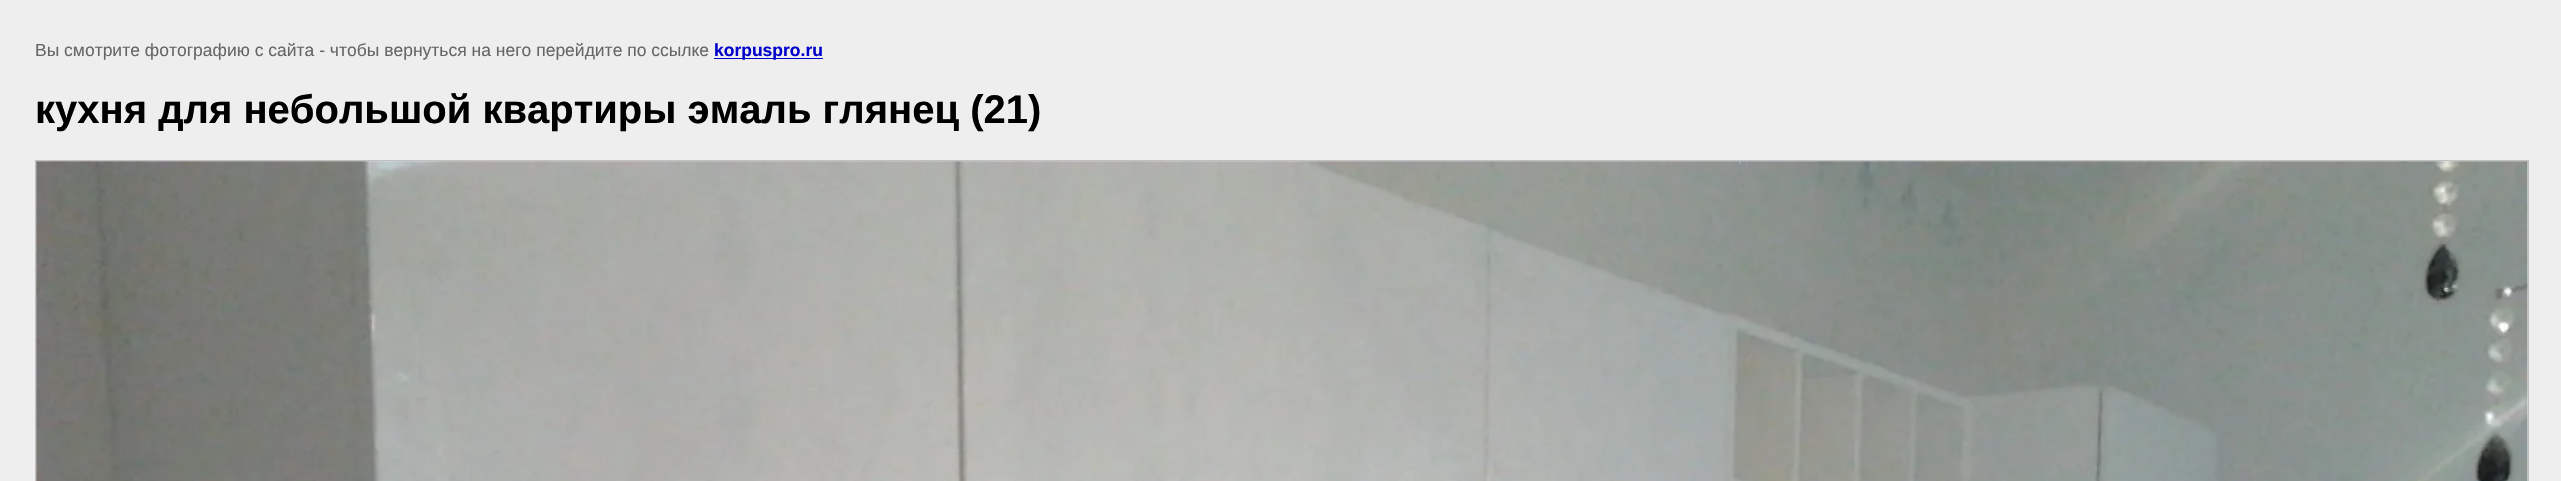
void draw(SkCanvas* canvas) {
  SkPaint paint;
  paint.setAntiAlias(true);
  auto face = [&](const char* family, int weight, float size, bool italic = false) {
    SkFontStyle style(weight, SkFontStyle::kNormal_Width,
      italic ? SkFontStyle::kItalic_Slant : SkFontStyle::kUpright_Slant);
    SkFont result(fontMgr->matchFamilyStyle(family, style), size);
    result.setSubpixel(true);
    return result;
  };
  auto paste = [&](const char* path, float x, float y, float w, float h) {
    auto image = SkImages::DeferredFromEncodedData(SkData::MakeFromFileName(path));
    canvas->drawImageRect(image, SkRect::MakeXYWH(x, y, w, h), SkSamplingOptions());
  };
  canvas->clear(0xffeeeeee);
  paint.setColor(0xff0000cc);
  canvas->drawRect(SkRect::MakeXYWH(714, 58, 109, 1), paint);
  paint.setStroke(true);
  paint.setStrokeWidth(1);
  paint.setColor(0xffc0c0c0);
  canvas->drawRect(SkRect::MakeXYWH(35.5f, 160.5f, 2493, 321), paint);
  paste("img/1.png", 36, 161, 2492, 320);
  auto f0 = face("Liberation Sans", 400, 17.5f);
  paint.setStroke(false);
  paint.setColor(0xff666666);
  canvas->drawString("Вы смотрите фотографию с сайта - чтобы вернуться на него перейдите по ссылке", 35, 56, f0, paint);
  auto f1 = face("Liberation Sans", 700, 17.5f);
  paint.setColor(0xff0000cc);
  canvas->drawString("korpuspro.ru", 714, 56, f1, paint);
  auto f2 = face("Liberation Sans", 700, 40);
  paint.setColor(0xff000000);
  canvas->drawString("кухня для небольшой квартиры эмаль глянец (21)", 35, 123, f2, paint);
}
